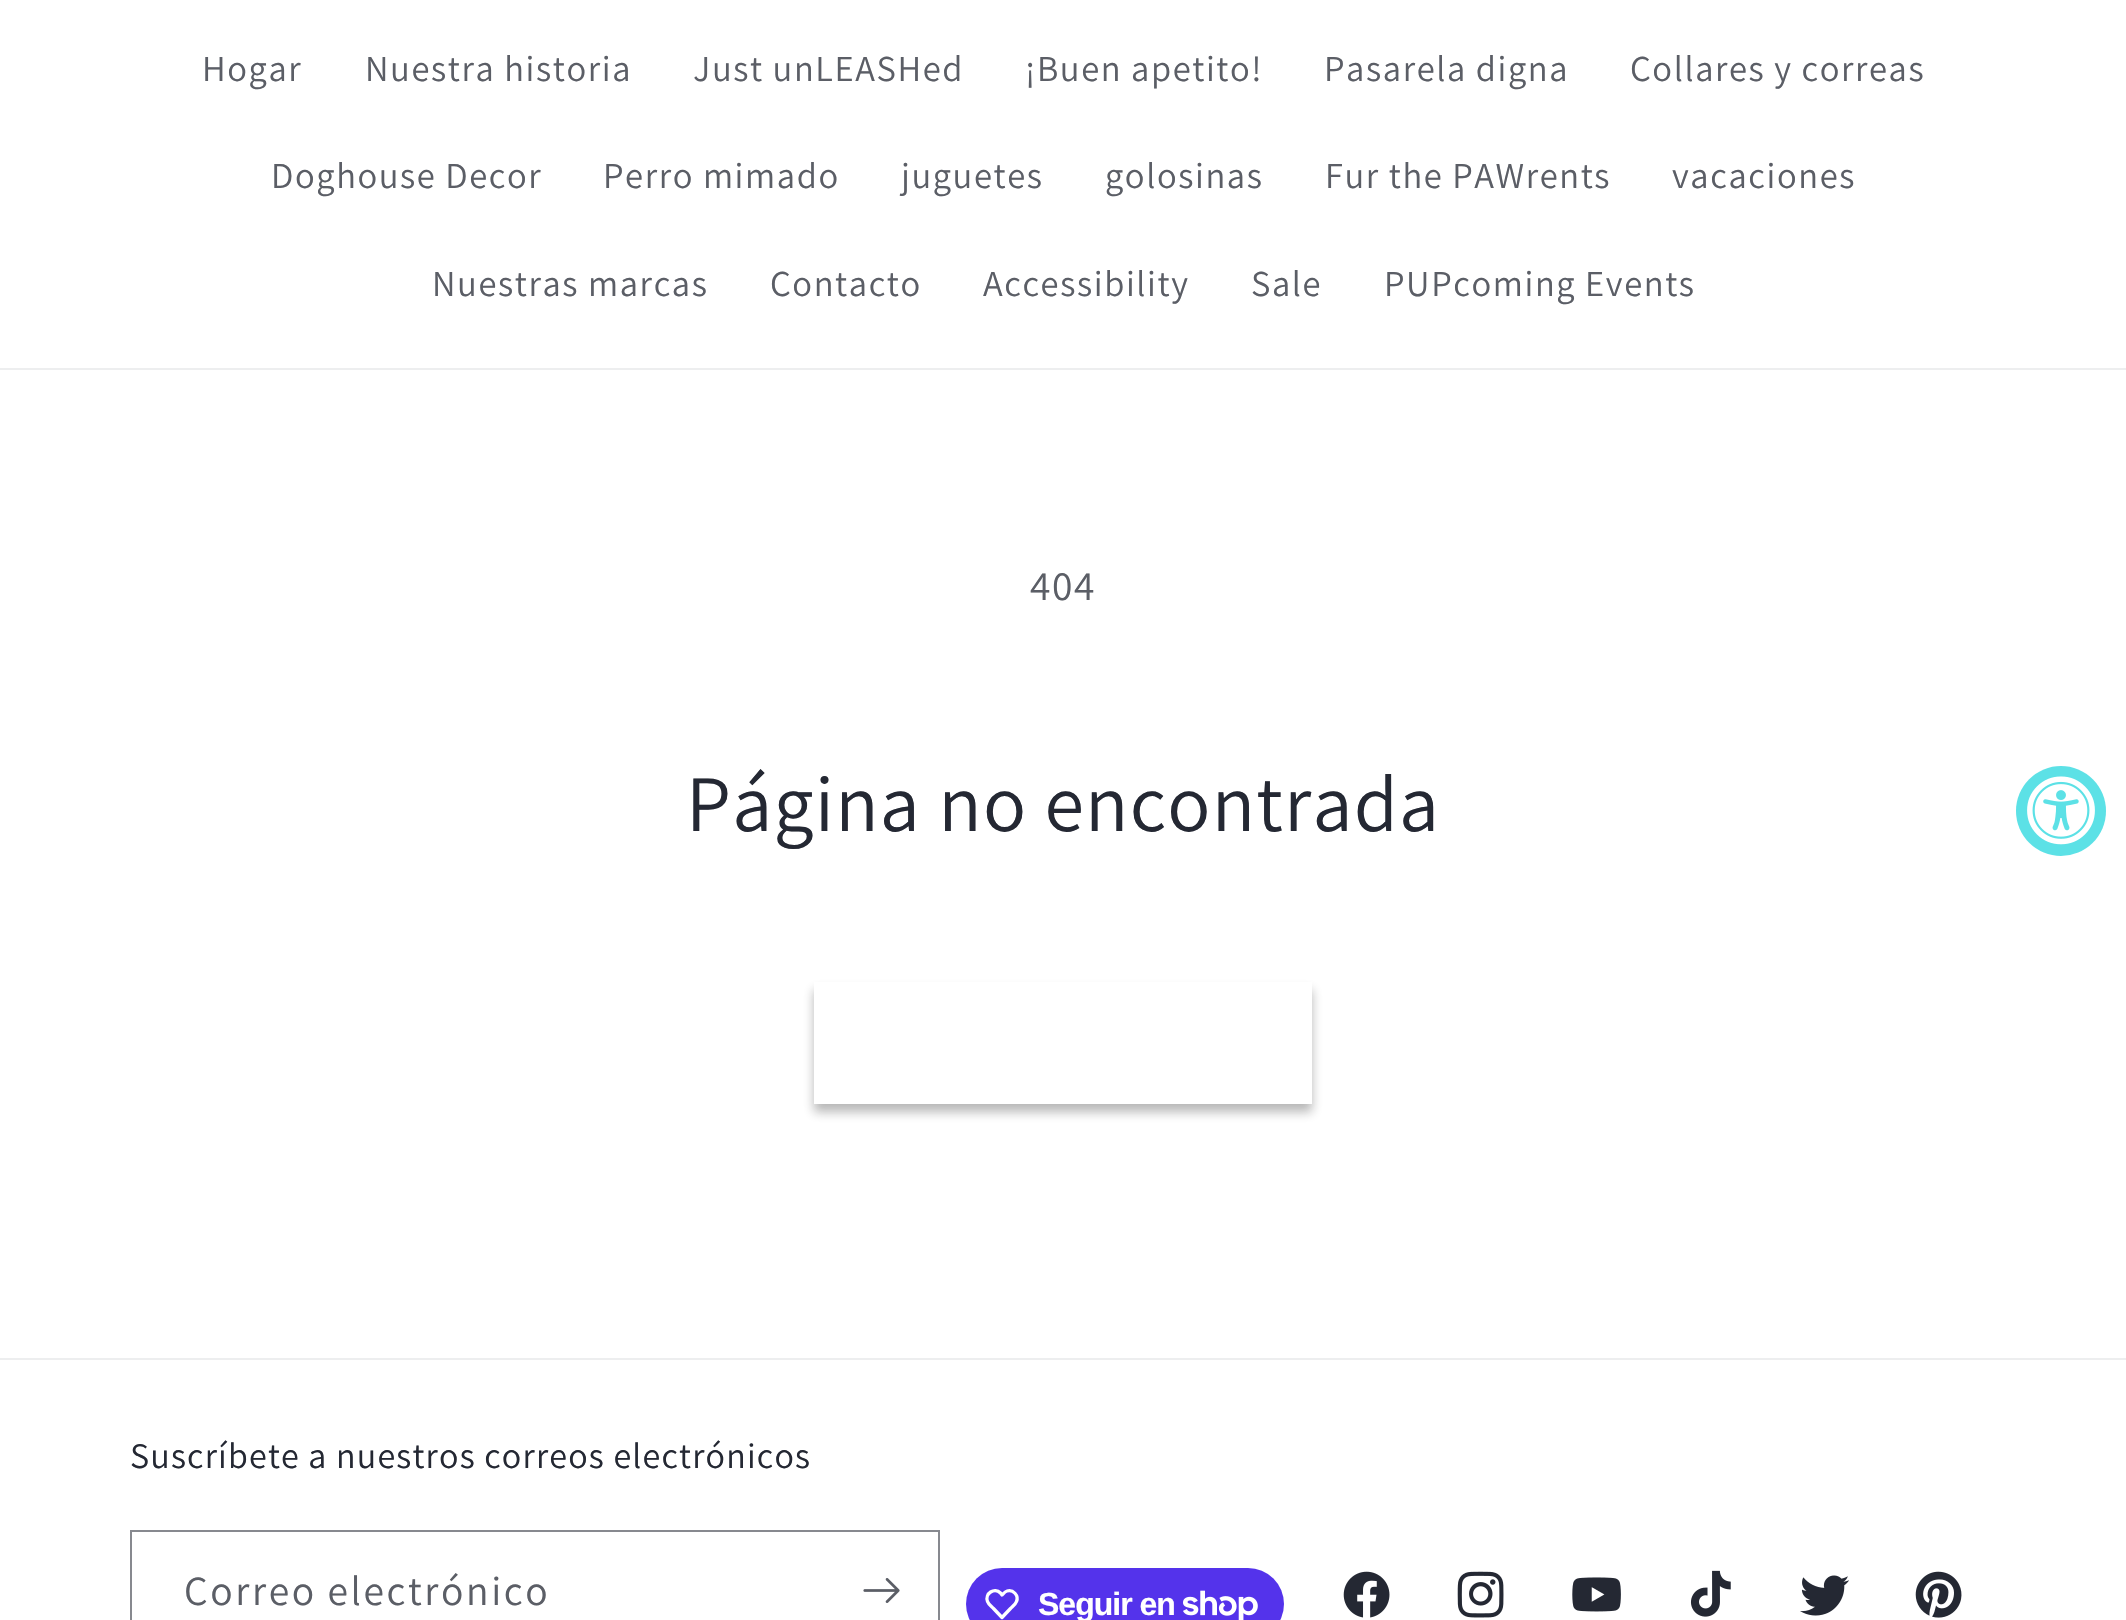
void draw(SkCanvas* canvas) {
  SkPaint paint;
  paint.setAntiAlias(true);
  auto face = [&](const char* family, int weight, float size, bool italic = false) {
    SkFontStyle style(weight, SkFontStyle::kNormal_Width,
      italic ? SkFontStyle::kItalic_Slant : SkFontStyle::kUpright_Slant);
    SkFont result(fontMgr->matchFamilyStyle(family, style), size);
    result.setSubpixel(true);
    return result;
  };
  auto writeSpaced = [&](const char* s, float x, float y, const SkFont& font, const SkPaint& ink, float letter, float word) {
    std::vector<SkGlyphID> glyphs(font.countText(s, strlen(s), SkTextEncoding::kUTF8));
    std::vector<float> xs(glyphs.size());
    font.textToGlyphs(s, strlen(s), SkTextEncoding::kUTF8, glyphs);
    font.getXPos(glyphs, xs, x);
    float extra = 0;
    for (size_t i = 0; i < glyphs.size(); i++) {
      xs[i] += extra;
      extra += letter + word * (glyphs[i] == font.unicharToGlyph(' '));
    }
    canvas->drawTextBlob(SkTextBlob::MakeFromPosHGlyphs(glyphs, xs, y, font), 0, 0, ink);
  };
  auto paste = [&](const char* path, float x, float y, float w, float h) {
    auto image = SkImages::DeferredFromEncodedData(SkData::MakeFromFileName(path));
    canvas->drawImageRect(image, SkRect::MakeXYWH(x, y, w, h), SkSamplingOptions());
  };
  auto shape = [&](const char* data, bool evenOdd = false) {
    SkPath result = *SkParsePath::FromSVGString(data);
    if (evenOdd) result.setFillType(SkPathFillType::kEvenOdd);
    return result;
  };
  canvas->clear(0xffffffff);
  paint.setColor(0xffedeeef);
  canvas->drawRect(SkRect::MakeXYWH(0, 368, 2126, 2), paint);
  canvas->save();
  canvas->clipPath(shape("M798 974H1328V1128H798ZM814 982H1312V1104H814Z", true), true);
  paint.setColor(0x4d121212);
  paint.setMaskFilter(SkMaskFilter::MakeBlur(kNormal_SkBlurStyle, 5));
  canvas->drawRect(SkRect::MakeXYWH(814, 990, 498, 122), paint);
  paint.setMaskFilter(nullptr);
  canvas->restore();
  paint.setColor(0xff5ce1e6);
  canvas->drawCircle(2061, 811, 45, paint);
  paste("img/1.png", 2027, 776, 68, 69);
  paint.setColor(0xffedeeef);
  canvas->drawRect(SkRect::MakeXYWH(0, 1358, 2126, 2), paint);
  paint.setStroke(true);
  paint.setStrokeWidth(2);
  paint.setColor(0xff87898f);
  canvas->drawRect(SkRect::MakeXYWH(131, 1531, 808, 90), paint);
  paste("img/2.png", 863, 1578, 37, 25);
  paint.setStroke(false);
  paint.setColor(0xff5433eb);
  canvas->drawRoundRect(SkRect::MakeXYWH(966, 1568, 318, 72), 36, 36, paint);
  paint.setStroke(true);
  paint.setStrokeWidth(3.3f);
  paint.setStrokeJoin(SkPaint::kRound_Join);
  paint.setColor(0xffffffff);
  canvas->drawPath(shape("M1000.5 1593L1002 1595C1003.5 1593.5 1005 1591.5 1007 1591C1013 1589 1019 1595.5 1016.5 1601.5C1015.5 1604.5 1012.5 1606.5 1010.5 1608.5L1002 1617.5L993.5 1608.5C991.5 1606.5 988.5 1604.5 987.5 1601.5C984.5 1593.5 994.5 1587 1000.5 1593Z"), paint);
  paste("img/3.png", 1183, 1590, 75, 30);
  paste("img/4.png", 1343, 1571, 47, 47);
  paste("img/5.png", 1457, 1571, 47, 47);
  paste("img/6.png", 1572, 1577, 49, 35);
  paste("img/7.png", 1690, 1570, 41, 47);
  paste("img/8.png", 1800, 1575, 49, 41);
  paste("img/9.png", 1915, 1571, 47, 47);
  auto f0 = face("Assistant", 400, 36.5f);
  paint.setStroke(false);
  paint.setColor(0xff5b5e66);
  {
    const struct { const char* s; float x, y; } items[] = {
      {"Hogar", 202, 81},
      {"Nuestra historia", 365, 81},
      {"Just unLEASHed", 693, 81},
      {"¡Buen apetito!", 1025, 81},
      {"Pasarela digna", 1324, 81},
      {"Collares y correas", 1630, 81},
      {"Doghouse Decor", 271, 188},
      {"Perro mimado", 603, 188},
      {"juguetes", 901, 188},
      {"golosinas", 1105, 188},
      {"Fur the PAWrents", 1325, 188},
      {"vacaciones", 1672, 188},
      {"Nuestras marcas", 432, 296},
      {"Contacto", 770, 296},
      {"Accessibility", 983, 296},
      {"Sale", 1251, 296},
      {"PUPcoming Events", 1384, 296},
    };
    for (auto [s, x, y] : items) {
      writeSpaced(s, x, y, f0, paint, 1.6f, 0);
    }
  }
  auto f1 = face("Assistant", 400, 41.5f);
  writeSpaced("404", 1030, 600, f1, paint, 1.6f, 0);
  auto f2 = face("Assistant", 400, 80);
  paint.setColor(0xff242833);
  writeSpaced("Página no encontrada", 686, 831, f2, paint, 1.2f, 0);
  auto f3 = face("Assistant", 400, 36);
  writeSpaced("Suscríbete a nuestros correos electrónicos", 130, 1468, f3, paint, 1.2f, 0);
  paint.setColor(0xff5b5e66);
  writeSpaced("Correo electrónico", 184, 1605, f1, paint, 2.6f, 0);
  auto f4 = face("Liberation Sans", 700, 32);
  paint.setColor(0xffffffff);
  writeSpaced("Seguir en", 1038, 1615, f4, paint, -1, 0);
}
